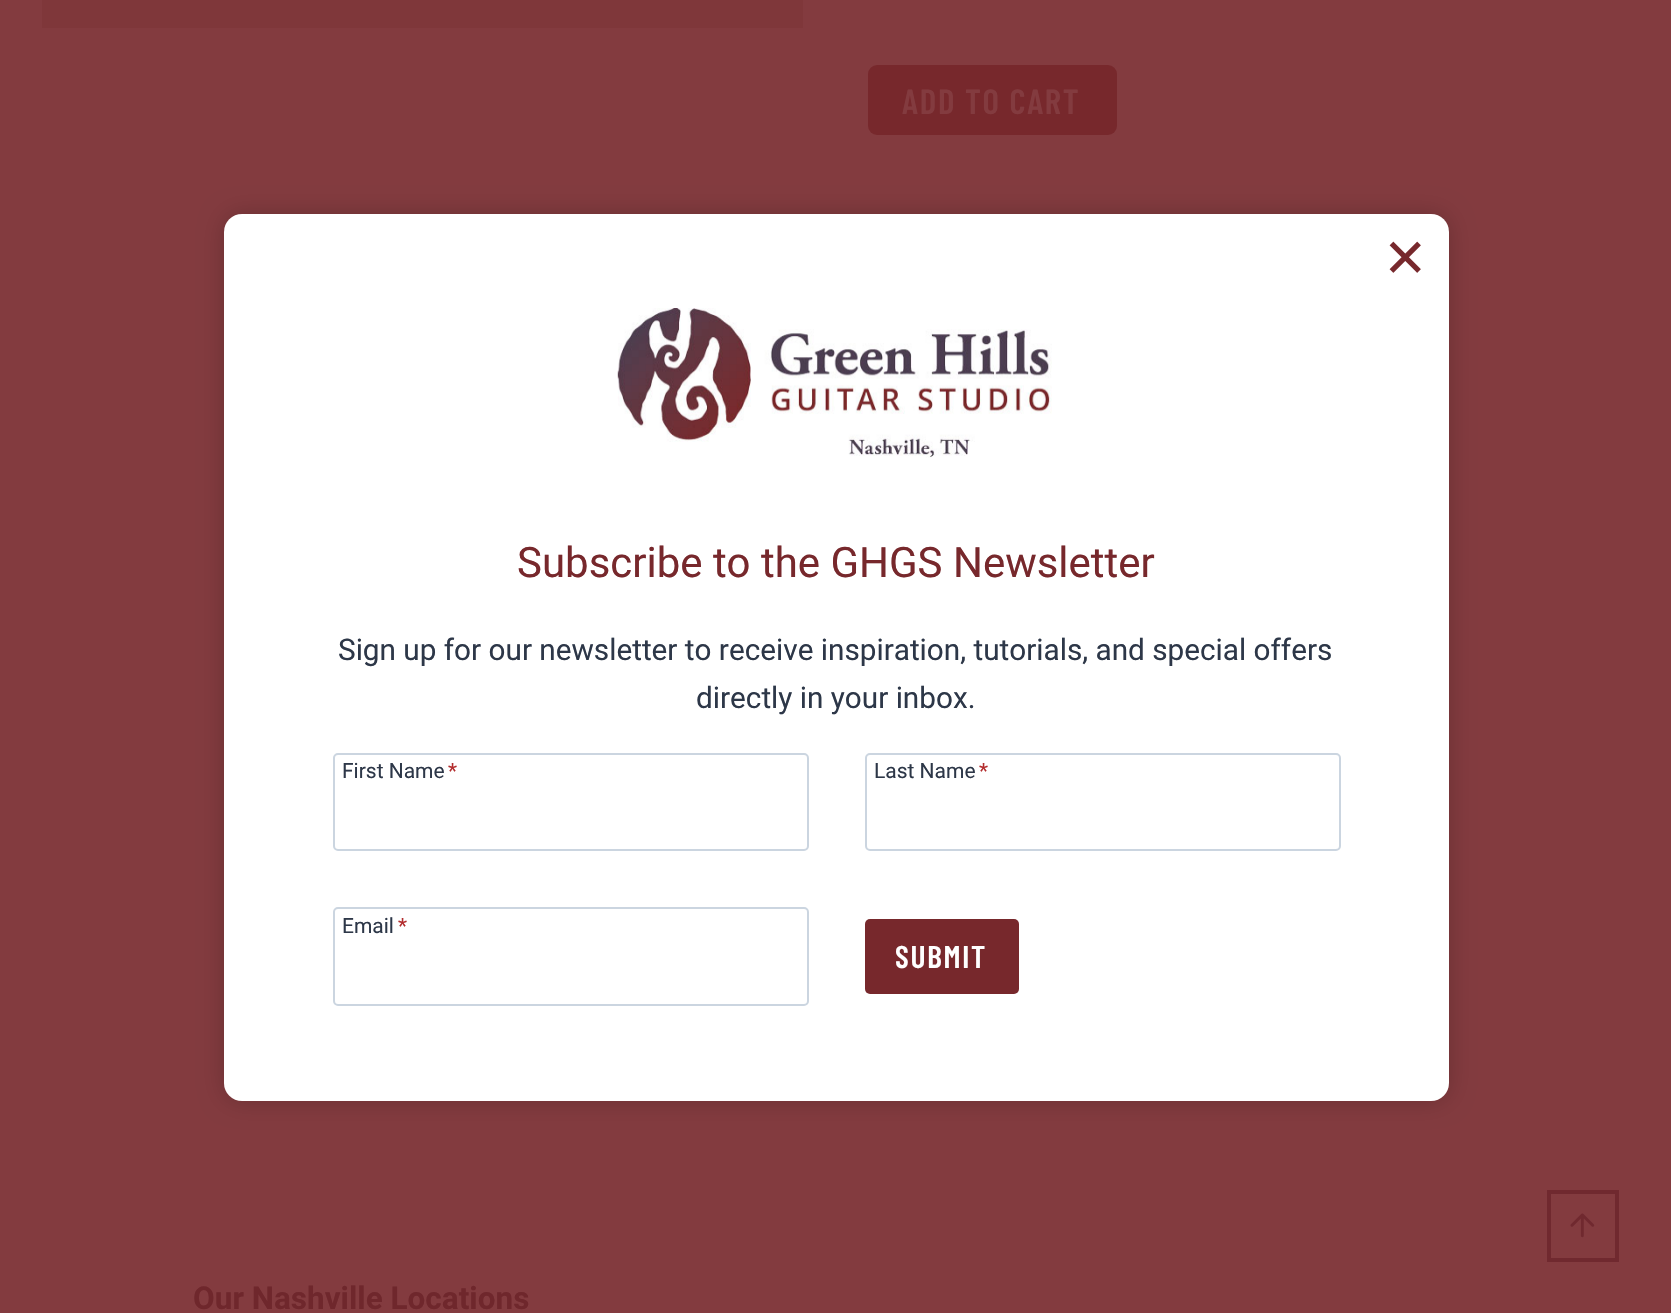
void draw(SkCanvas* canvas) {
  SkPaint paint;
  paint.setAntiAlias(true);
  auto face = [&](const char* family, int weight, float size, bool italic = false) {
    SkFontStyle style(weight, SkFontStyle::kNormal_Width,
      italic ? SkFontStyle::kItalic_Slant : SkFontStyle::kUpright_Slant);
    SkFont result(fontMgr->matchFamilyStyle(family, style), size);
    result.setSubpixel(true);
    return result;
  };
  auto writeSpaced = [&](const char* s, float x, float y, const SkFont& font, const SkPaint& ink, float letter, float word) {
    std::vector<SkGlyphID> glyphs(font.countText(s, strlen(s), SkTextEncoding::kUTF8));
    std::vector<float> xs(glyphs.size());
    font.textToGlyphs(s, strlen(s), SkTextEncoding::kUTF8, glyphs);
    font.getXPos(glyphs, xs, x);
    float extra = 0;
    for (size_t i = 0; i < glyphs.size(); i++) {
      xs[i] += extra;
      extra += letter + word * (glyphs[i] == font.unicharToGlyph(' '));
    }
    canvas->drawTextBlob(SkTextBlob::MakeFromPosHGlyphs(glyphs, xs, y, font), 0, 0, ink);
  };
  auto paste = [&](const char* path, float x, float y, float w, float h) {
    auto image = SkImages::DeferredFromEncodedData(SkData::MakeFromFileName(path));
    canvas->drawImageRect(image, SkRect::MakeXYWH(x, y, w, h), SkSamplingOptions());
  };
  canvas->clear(0xff833b3f);
  paint.setColor(0xff7f373a);
  canvas->drawRect(SkRect::MakeXYWH(42, 0, 761, 28), paint);
  paint.setColor(0xff77282c);
  canvas->drawRoundRect(SkRect::MakeXYWH(868, 65, 249, 70), 9, 9, paint);
  paint.setColor(0x33000000);
  paint.setMaskFilter(SkMaskFilter::MakeBlur(kNormal_SkBlurStyle, 12));
  canvas->drawRoundRect(SkRect::MakeXYWH(224, 214, 1225, 887), 18, 18, paint);
  paint.setMaskFilter(nullptr);
  paint.setColor(0xffffffff);
  canvas->drawRoundRect(SkRect::MakeXYWH(224, 214, 1225, 887), 18, 18, paint);
  paste("img/1.png", 1389, 241, 32, 32);
  paste("img/2.png", 617, 308, 435, 150);
  paint.setStroke(true);
  paint.setStrokeWidth(2);
  paint.setColor(0xffcbd5e0);
  canvas->drawRoundRect(SkRect::MakeXYWH(334, 754, 474, 96), 4, 4, paint);
  canvas->drawRoundRect(SkRect::MakeXYWH(866, 754, 474, 96), 4, 4, paint);
  canvas->drawRoundRect(SkRect::MakeXYWH(334, 908, 474, 97), 4, 4, paint);
  paint.setStroke(false);
  paint.setColor(0xff77282c);
  canvas->drawRoundRect(SkRect::MakeXYWH(865, 919, 154, 75), 5, 5, paint);
  paint.setStroke(true);
  paint.setStrokeWidth(4);
  paint.setColor(0xff70292f);
  canvas->drawRect(SkRect::MakeXYWH(1549, 1192, 68, 68), paint);
  paste("img/3.png", 1570, 1213, 25, 25);
  auto f0 = face("Barlow Condensed", 600, 35);
  paint.setStroke(false);
  paint.setColor(0xff833b3f);
  writeSpaced("ADD TO CART", 902, 114, f0, paint, 1.75f, 0);
  auto f1 = face("Roboto", 700, 31.5f);
  paint.setColor(0xff6f272c);
  canvas->drawString("Our Nashville Locations", 193, 1309, f1, paint);
  auto f2 = face("Roboto", 400, 42);
  paint.setColor(0xff77282c);
  canvas->drawString("Subscribe to the GHGS Newsletter", 517, 577, f2, paint);
  auto f3 = face("Roboto", 400, 29.75f);
  paint.setColor(0xff2d3748);
  canvas->drawString("Sign up for our newsletter to receive inspiration, tutorials, and special offers", 338, 660, f3, paint);
  canvas->drawString("directly in your inbox.", 696, 708, f3, paint);
  auto f4 = face("Roboto", 400, 21);
  canvas->drawString("First Name", 342, 778, f4, paint);
  paint.setColor(0xffb32d2e);
  canvas->drawString("*", 448, 778, f4, paint);
  paint.setColor(0xff2d3748);
  canvas->drawString("Last Name", 874, 778, f4, paint);
  paint.setColor(0xffb32d2e);
  canvas->drawString("*", 979, 778, f4, paint);
  paint.setColor(0xff2d3748);
  canvas->drawString("Email", 342, 933, f4, paint);
  paint.setColor(0xffb32d2e);
  canvas->drawString("*", 398, 933, f4, paint);
  auto f5 = face("Barlow Condensed", 600, 31.5f);
  paint.setColor(0xffffffff);
  writeSpaced("SUBMIT", 895, 968, f5, paint, 1.75f, 0);
}
